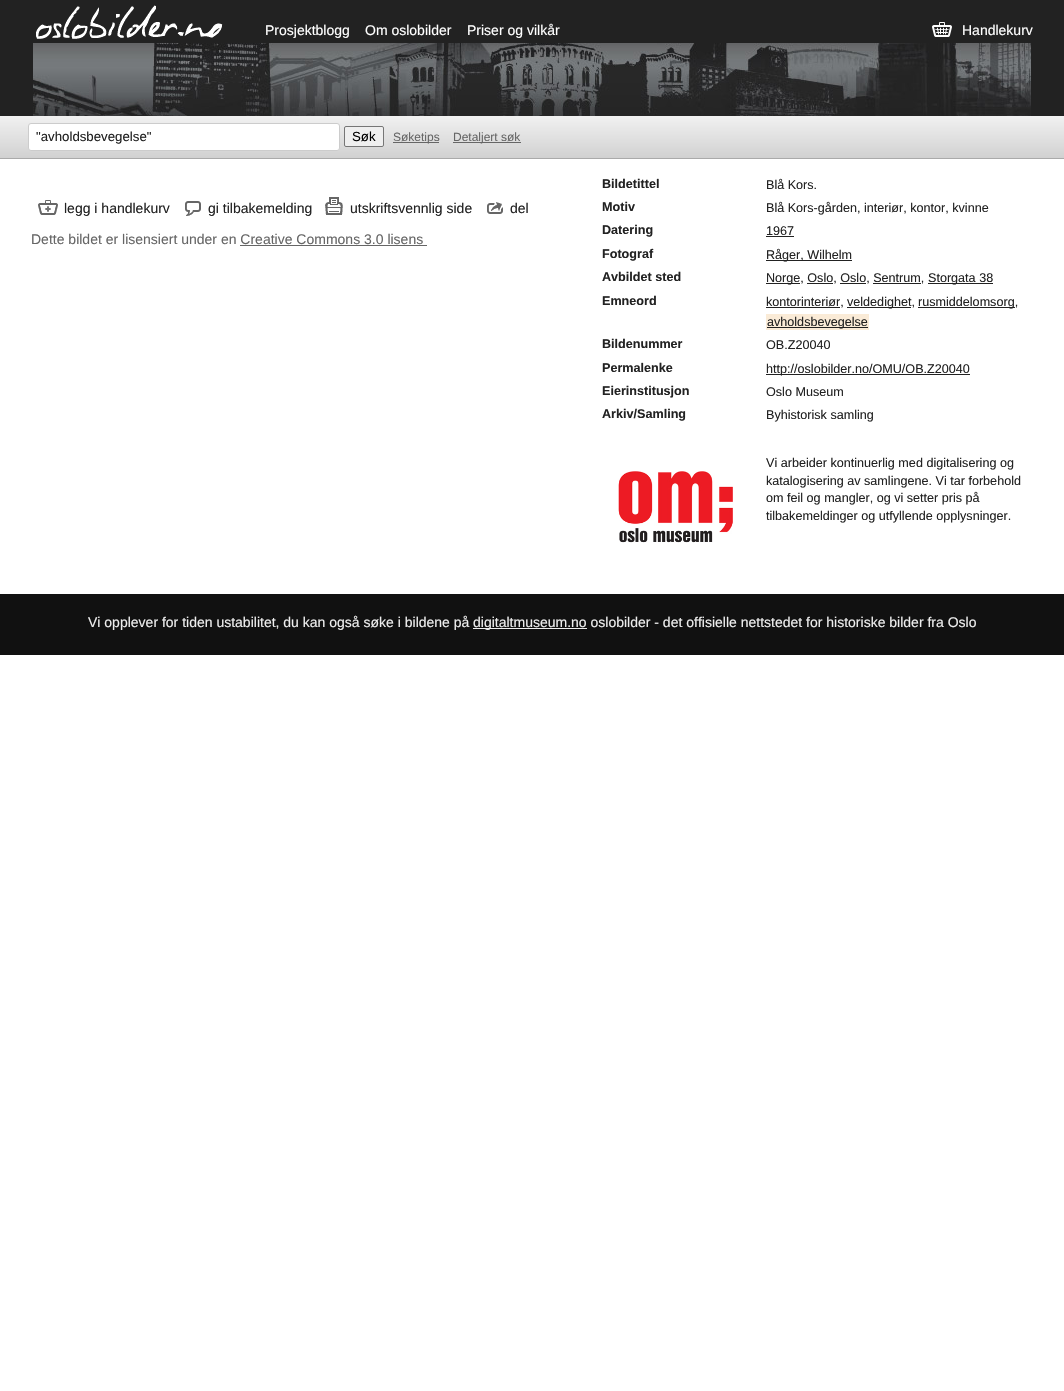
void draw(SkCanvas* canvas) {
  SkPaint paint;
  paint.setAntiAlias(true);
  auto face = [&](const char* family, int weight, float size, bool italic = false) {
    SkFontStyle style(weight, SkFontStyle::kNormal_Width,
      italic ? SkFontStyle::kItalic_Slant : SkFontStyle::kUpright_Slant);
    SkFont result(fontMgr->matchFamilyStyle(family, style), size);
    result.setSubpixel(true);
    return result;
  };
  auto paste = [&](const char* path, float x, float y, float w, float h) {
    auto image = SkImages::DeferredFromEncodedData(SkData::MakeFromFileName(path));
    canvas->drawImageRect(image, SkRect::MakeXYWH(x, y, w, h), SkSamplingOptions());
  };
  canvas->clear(0xffffffff);
  paint.setColor(0xff222222);
  canvas->drawRect(SkRect::MakeXYWH(0, 0, 1064, 116), paint);
  paste("img/1.png", 33, 43, 998, 73);
  paste("img/2.png", 36, 5, 187, 34);
  paste("img/3.png", 932, 22, 20, 15);
  {
    const SkColor colors[] = {0xfff1f1f1, 0xffd1d1d1};
    const float stops[] = {0, 1};
    const SkPoint ends[] = {{532, 116}, {532, 158}};
    paint.setShader(SkGradientShader::MakeLinear(ends, colors, stops, 2, SkTileMode::kClamp));
    paint.setAlpha(255);
  }
  canvas->drawRect(SkRect::MakeXYWH(0, 116, 1064, 42), paint);
  paint.setShader(nullptr);
  paint.setColor(0xffaaaaaa);
  canvas->drawRect(SkRect::MakeXYWH(0, 158, 1064, 1), paint);
  paint.setColor(0xffffffff);
  canvas->drawRoundRect(SkRect::MakeXYWH(28.5f, 123.5f, 311, 27), 2.5f, 2.5f, paint);
  paint.setStroke(true);
  paint.setStrokeWidth(1);
  paint.setColor(0xffcccccc);
  canvas->drawRoundRect(SkRect::MakeXYWH(28.5f, 123.5f, 311, 27), 2.5f, 2.5f, paint);
  paint.setStroke(false);
  paint.setColor(0xffefefef);
  canvas->drawRoundRect(SkRect::MakeXYWH(344.5f, 126.5f, 39, 20), 1.5f, 1.5f, paint);
  paint.setStroke(true);
  paint.setColor(0xff767676);
  canvas->drawRoundRect(SkRect::MakeXYWH(344.5f, 126.5f, 39, 20), 1.5f, 1.5f, paint);
  paint.setStroke(false);
  paint.setColor(0xff666666);
  canvas->drawRect(SkRect::MakeXYWH(393, 142, 46, 1), paint);
  canvas->drawRect(SkRect::MakeXYWH(453, 142, 68, 1), paint);
  paste("img/4.png", 38, 200, 20, 15);
  paste("img/5.png", 185, 201, 16, 15);
  paste("img/6.png", 325, 197, 18, 18);
  paste("img/7.png", 487, 202, 16, 12);
  {
    const struct { float x, y, w, h; SkColor color; } items[] = {
      {240, 245, 187, 1, 0xff666666},
      {766, 236, 28, 1, 0xff222222},
      {766, 260, 86, 1, 0xff222222},
      {766, 283, 34, 1, 0xff222222},
      {928, 283, 65, 1, 0xff222222},
      {807, 283, 26, 1, 0xff222222},
      {840, 283, 26, 1, 0xff222222},
      {873, 283, 48, 1, 0xff222222},
      {766, 307, 74, 1, 0xff222222},
      {847, 307, 64, 1, 0xff222222},
      {918, 307, 97, 1, 0xff222222},
      {766, 314, 103, 16, 0xfffaebd7},
      {767, 327, 101, 1, 0xff222222},
      {766, 374, 204, 1, 0xff222222},
    };
    for (auto [x, y, w, h, color] : items) {
      paint.setColor(color);
      canvas->drawRect(SkRect::MakeXYWH(x, y, w, h), paint);
    }
  }
  paste("img/8.png", 618, 471, 115, 72);
  paint.setColor(0xff111111);
  canvas->drawRect(SkRect::MakeXYWH(0, 594, 1064, 61), paint);
  paint.setColor(0xffeeeeee);
  canvas->drawRect(SkRect::MakeXYWH(473, 628, 114, 1), paint);
  auto f0 = face("Liberation Sans", 400, 14);
  paint.setColor(0xffffffff);
  {
    const struct { const char* s; float x, y; } items[] = {
      {"Prosjektblogg", 265, 35},
      {"Om oslobilder", 365, 35},
      {"Priser og vilkår", 467, 35},
      {"Handlekurv", 962, 35},
    };
    for (auto [s, x, y] : items) {
      canvas->drawString(s, x, y, f0, paint);
    }
  }
  auto f1 = face("Liberation Sans", 400, 13.25f);
  paint.setColor(0xff222222);
  canvas->drawString("\"avholdsbevegelse\"", 36, 141, f1, paint);
  paint.setColor(0xff000000);
  canvas->drawString("Søk", 352, 141, f1, paint);
  auto f2 = face("Liberation Sans", 400, 12);
  paint.setColor(0xff666666);
  canvas->drawString("Søketips", 393, 141, f2, paint);
  canvas->drawString("Detaljert søk", 453, 141, f2, paint);
  paint.setColor(0xff222222);
  {
    const struct { const char* s; float x, y; } items[] = {
      {"legg i handlekurv", 64, 213},
      {"gi tilbakemelding", 208, 213},
      {"utskriftsvennlig side", 350, 213},
      {"del", 510, 213},
    };
    for (auto [s, x, y] : items) {
      canvas->drawString(s, x, y, f0, paint);
    }
  }
  paint.setColor(0xff666666);
  canvas->drawString("Dette bildet er lisensiert under en Creative Commons 3.0 lisens", 31, 244, f0, paint);
  auto f3 = face("Liberation Sans", 700, 12.6f);
  paint.setColor(0xff222222);
  canvas->drawString("Bildetittel", 602, 188, f3, paint);
  auto f4 = face("Liberation Sans", 400, 12.6f);
  canvas->drawString("Blå Kors.", 766, 189, f4, paint);
  canvas->drawString("Motiv", 602, 211, f3, paint);
  canvas->drawString("Blå Kors-gården, interiør, kontor, kvinne", 766, 212, f4, paint);
  canvas->drawString("Datering", 602, 234, f3, paint);
  canvas->drawString("1967", 766, 235, f4, paint);
  canvas->drawString("Fotograf", 602, 258, f3, paint);
  canvas->drawString("Råger, Wilhelm", 766, 259, f4, paint);
  canvas->drawString("Avbildet sted", 602, 281, f3, paint);
  canvas->drawString("Norge, Oslo, Oslo, Sentrum,", 766, 282, f4, paint);
  canvas->drawString("Storgata 38", 928, 282, f4, paint);
  canvas->drawString("Emneord", 602, 305, f3, paint);
  {
    const struct { const char* s; float x, y; } items[] = {
      {"kontorinteriør,", 766, 306},
      {"veldedighet,", 847, 306},
      {"rusmiddelomsorg,", 918, 306},
      {"avholdsbevegelse", 767, 326},
    };
    for (auto [s, x, y] : items) {
      canvas->drawString(s, x, y, f4, paint);
    }
  }
  canvas->drawString("Bildenummer", 602, 348, f3, paint);
  canvas->drawString("OB.Z20040", 766, 349, f4, paint);
  canvas->drawString("Permalenke", 602, 372, f3, paint);
  canvas->drawString("http://oslobilder.no/OMU/OB.Z20040", 766, 373, f4, paint);
  canvas->drawString("Eierinstitusjon", 602, 395, f3, paint);
  canvas->drawString("Oslo Museum", 766, 396, f4, paint);
  canvas->drawString("Arkiv/Samling", 602, 418, f3, paint);
  {
    const struct { const char* s; float x, y; } items[] = {
      {"Byhistorisk samling", 766, 419},
      {"Vi arbeider kontinuerlig med digitalisering og", 766, 467},
      {"katalogisering av samlingene. Vi tar forbehold", 766, 485},
      {"om feil og mangler, og vi setter pris på", 766, 502},
      {"tilbakemeldinger og utfyllende opplysninger.", 766, 520},
    };
    for (auto [s, x, y] : items) {
      canvas->drawString(s, x, y, f4, paint);
    }
  }
  paint.setColor(0xffeeeeee);
  canvas->drawString("Vi opplever for tiden ustabilitet, du kan også søke i bildene på", 88, 627, f0, paint);
  canvas->drawString("digitaltmuseum.no oslobilder - det offisielle nettstedet for historiske bilder fra Oslo", 473, 627, f0, paint);
}
